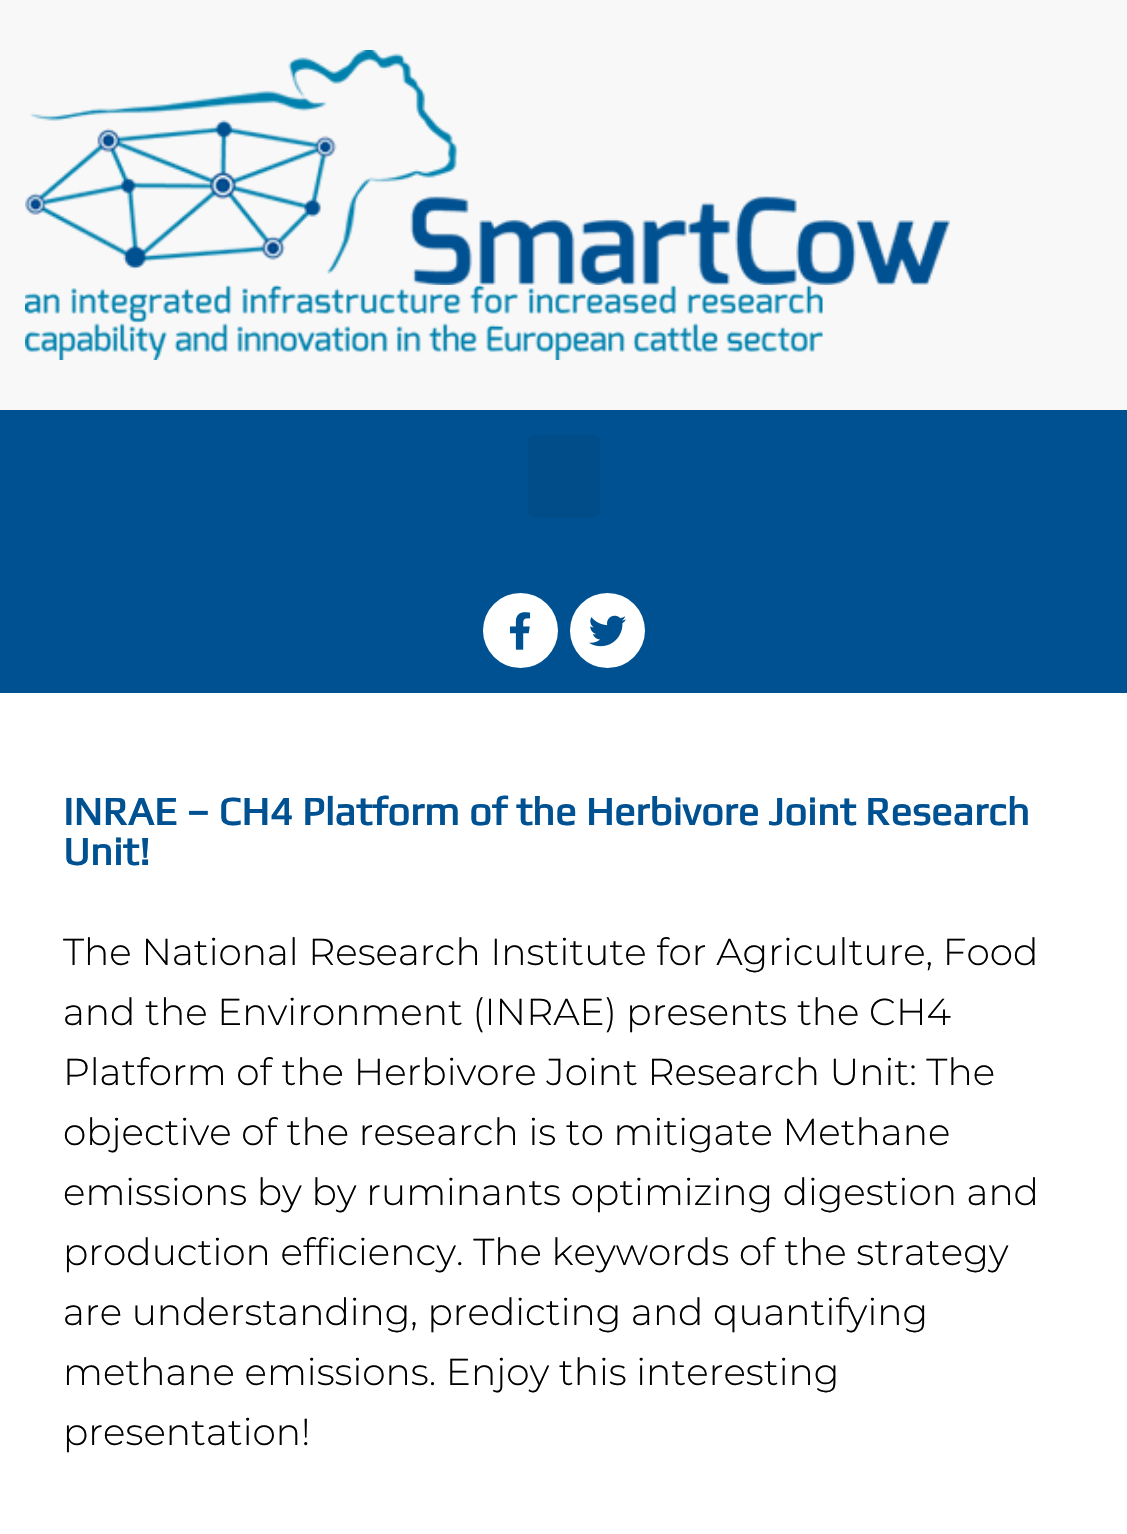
void draw(SkCanvas* canvas) {
  SkPaint paint;
  paint.setAntiAlias(true);
  auto face = [&](const char* family, int weight, float size, bool italic = false) {
    SkFontStyle style(weight, SkFontStyle::kNormal_Width,
      italic ? SkFontStyle::kItalic_Slant : SkFontStyle::kUpright_Slant);
    SkFont result(fontMgr->matchFamilyStyle(family, style), size);
    result.setSubpixel(true);
    return result;
  };
  auto paste = [&](const char* path, float x, float y, float w, float h) {
    auto image = SkImages::DeferredFromEncodedData(SkData::MakeFromFileName(path));
    canvas->drawImageRect(image, SkRect::MakeXYWH(x, y, w, h), SkSamplingOptions());
  };
  canvas->clear(0xffffffff);
  paint.setColor(0xfff8f8f8);
  canvas->drawRect(SkRect::MakeXYWH(0, 0, 1127, 410), paint);
  paste("img/1.png", 25, 50, 925, 235);
  paste("img/2.png", 25, 285, 798, 75);
  paint.setColor(0xff005191);
  canvas->drawRect(SkRect::MakeXYWH(0, 410, 1127, 283), paint);
  paint.setColor(0xff004d8a);
  canvas->drawRoundRect(SkRect::MakeXYWH(528, 435, 72, 83), 8, 8, paint);
  paint.setColor(0xffffffff);
  canvas->drawCircle(520.5f, 630.5f, 37.5f, paint);
  paste("img/3.png", 509, 612, 22, 38);
  canvas->drawCircle(607.5f, 630.5f, 37.5f, paint);
  paste("img/4.png", 589, 615, 38, 32);
  auto f0 = face("Play", 700, 40);
  paint.setColor(0xff005191);
  canvas->drawString("INRAE – CH4 Platform of the Herbivore Joint Research", 63, 825, f0, paint);
  canvas->drawString("Unit!", 63, 865, f0, paint);
  auto f1 = face("Montserrat", 300, 37.5f);
  paint.setColor(0xff000000);
  {
    const struct { const char* s; float x, y; } items[] = {
      {"The National Research Institute for Agriculture, Food", 63, 965},
      {"and the Environment (INRAE) presents the CH4", 63, 1025},
      {"Platform of the Herbivore Joint Research Unit: The", 63, 1085},
      {"objective of the research is to mitigate Methane", 63, 1145},
      {"emissions by by ruminants optimizing digestion and", 63, 1205},
      {"production efficiency. The keywords of the strategy", 63, 1265},
      {"are understanding, predicting and quantifying", 63, 1325},
      {"methane emissions. Enjoy this interesting", 63, 1385},
      {"presentation!", 63, 1445},
    };
    for (auto [s, x, y] : items) {
      canvas->drawString(s, x, y, f1, paint);
    }
  }
}
